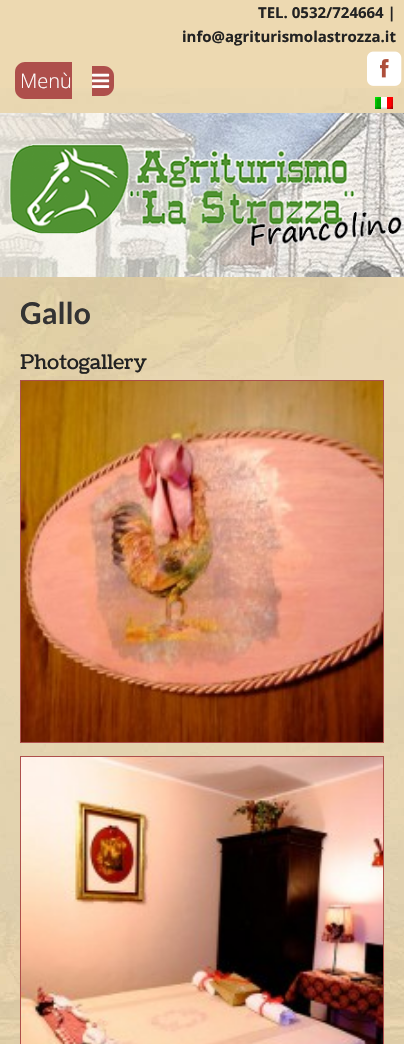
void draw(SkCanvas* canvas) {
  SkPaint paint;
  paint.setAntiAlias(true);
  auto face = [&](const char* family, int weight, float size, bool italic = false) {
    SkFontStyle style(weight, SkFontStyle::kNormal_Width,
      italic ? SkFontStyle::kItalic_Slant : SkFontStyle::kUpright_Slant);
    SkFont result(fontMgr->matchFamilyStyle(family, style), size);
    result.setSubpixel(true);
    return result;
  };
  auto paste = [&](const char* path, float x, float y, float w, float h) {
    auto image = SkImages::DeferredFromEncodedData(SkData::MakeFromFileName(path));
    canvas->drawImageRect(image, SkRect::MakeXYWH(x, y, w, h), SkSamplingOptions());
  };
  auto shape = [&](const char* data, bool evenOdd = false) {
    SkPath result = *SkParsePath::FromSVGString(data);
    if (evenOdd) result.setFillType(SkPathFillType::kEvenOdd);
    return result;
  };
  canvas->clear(0xffedd9b1);
  paste("img/1.png", 0, 88, 404, 956);
  paste("img/2.png", 367, 51, 35, 35);
  paste("img/3.png", 380, 59, 9, 19);
  paste("img/4.png", 375, 97, 18, 12);
  paste("img/5.png", 0, 113, 404, 164);
  paint.setColor(0xffae4f4b);
  canvas->drawPath(shape("M25 62H72V99H25C19.5 99 15 94.5 15 89V72C15 66.5 19.5 62 25 62Z"), paint);
  canvas->drawPath(shape("M92 66H104C109.5 66 114 70.5 114 76V86C114 91.5 109.5 96 104 96H92Z"), paint);
  paste("img/6.png", 92, 73, 18, 15);
  paste("img/7.png", 9, 144, 393, 103);
  paint.setStroke(true);
  paint.setStrokeWidth(1);
  canvas->drawRect(SkRect::MakeXYWH(20.5f, 380.5f, 363, 362), paint);
  paste("img/8.png", 21, 381, 362, 361);
  canvas->drawRect(SkRect::MakeXYWH(20.5f, 756.5f, 363, 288), paint);
  paste("img/9.png", 21, 757, 362, 287);
  auto f0 = face("Open Sans", 700, 15);
  paint.setStroke(false);
  paint.setColor(0xff222222);
  canvas->drawString("TEL. 0532/724664 |", 258, 18, f0, paint);
  canvas->drawString("info@agriturismolastrozza.it", 182, 42, f0, paint);
  auto f1 = face("Open Sans", 300, 20);
  paint.setColor(0xffffffff);
  canvas->drawString("Menù", 20, 88, f1, paint);
  auto f2 = face("Lato", 700, 30);
  paint.setColor(0xff333333);
  canvas->drawString("Gallo", 20, 324, f2, paint);
  auto f3 = face("Coustard", 400, 20);
  paint.setColor(0xff222222);
  canvas->drawString("Photogallery", 20, 369, f3, paint);
}
